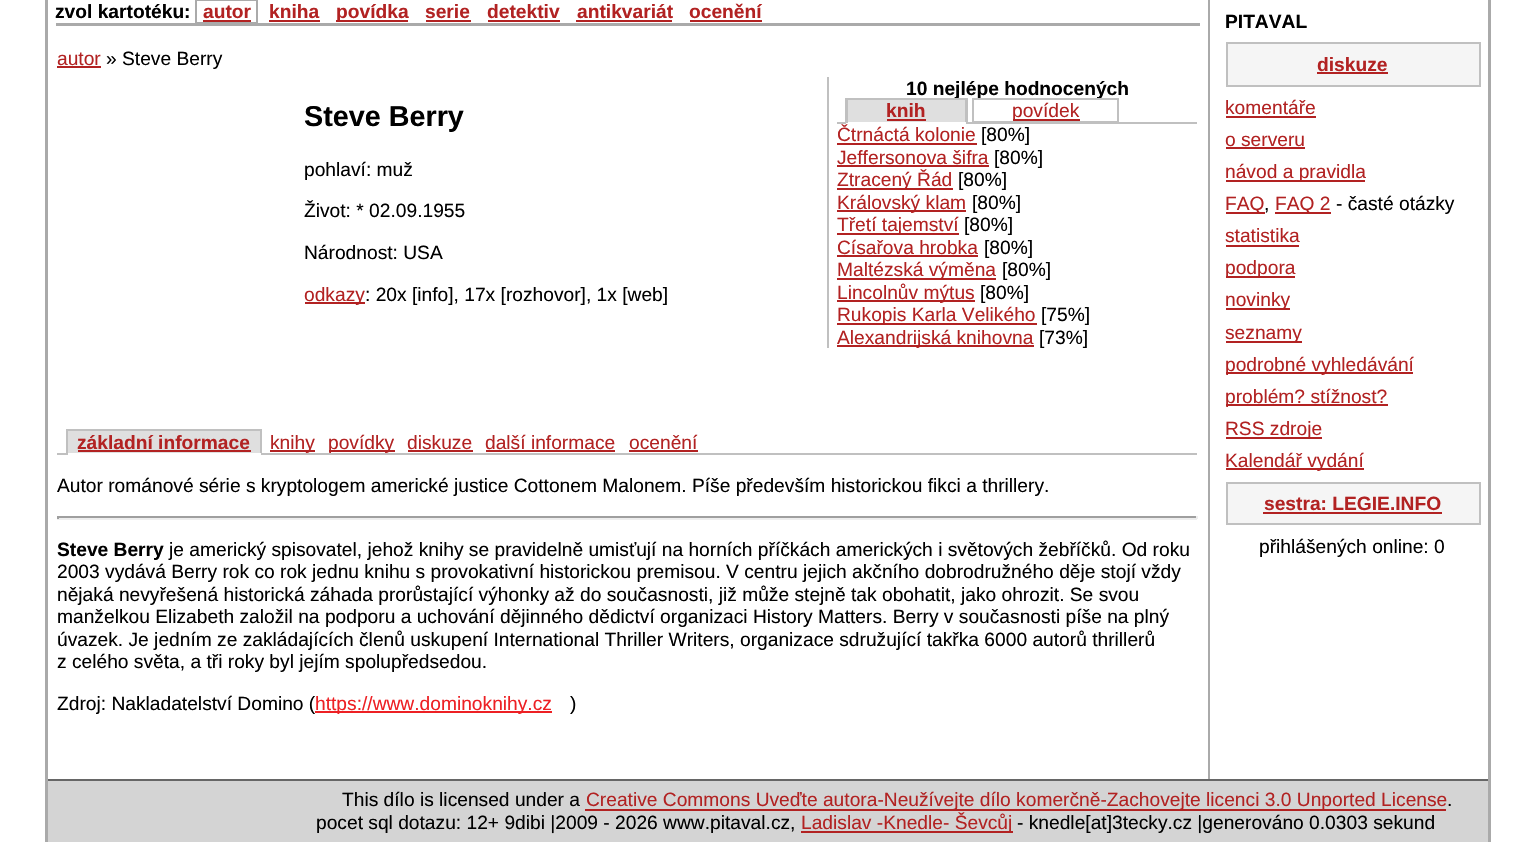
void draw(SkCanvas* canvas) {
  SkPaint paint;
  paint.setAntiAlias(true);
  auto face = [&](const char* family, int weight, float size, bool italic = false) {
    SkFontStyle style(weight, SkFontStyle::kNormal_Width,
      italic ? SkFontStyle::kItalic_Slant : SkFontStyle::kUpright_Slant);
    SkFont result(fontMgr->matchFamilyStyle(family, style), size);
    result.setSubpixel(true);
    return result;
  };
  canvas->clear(0xffffffff);
  {
    const struct { float x, y, w, h; SkColor color; } items[] = {
      {1488, 0, 3, 842, 0xffaaaaaa},
      {45, 0, 3, 842, 0xffaaaaaa},
      {1208, 0, 2, 779, 0xffaaaaaa},
      {56, 23, 1144, 3, 0xffaaaaaa},
    };
    for (auto [x, y, w, h, color] : items) {
      paint.setColor(color);
      canvas->drawRect(SkRect::MakeXYWH(x, y, w, h), paint);
    }
  }
  paint.setStroke(true);
  paint.setStrokeWidth(2);
  canvas->drawRect(SkRect::MakeXYWH(196, 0, 61, 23), paint);
  paint.setStroke(false);
  {
    const struct { float x, y, w, h; SkColor color; } items[] = {
      {203, 20, 48, 2, 0xffb22222},
      {269, 20, 51, 2, 0xffb22222},
      {336, 20, 72, 2, 0xffb22222},
      {426, 20, 45, 2, 0xffb22222},
      {488, 20, 72, 2, 0xffb22222},
      {576, 20, 96, 2, 0xffb22222},
      {690, 20, 72, 2, 0xffb22222},
      {57, 66, 44, 2, 0xffb22222},
      {305, 302, 60, 2, 0xffb22222},
      {827, 77, 2, 271, 0xffc0c0c0},
      {837, 122, 360, 2, 0xffc0c0c0},
      {837, 143, 140, 2, 0xffb22222},
      {837, 165, 152, 2, 0xffb22222},
      {837, 188, 116, 2, 0xffb22222},
      {837, 210, 129, 2, 0xffb22222},
      {837, 233, 122, 2, 0xffb22222},
      {837, 255, 141, 2, 0xffb22222},
      {837, 278, 159, 2, 0xffb22222},
      {837, 300, 138, 2, 0xffb22222},
      {837, 323, 200, 2, 0xffb22222},
      {837, 345, 197, 2, 0xffb22222},
      {57, 453, 1140, 2, 0xffc0c0c0},
      {68, 431, 192, 22, 0xffdfdfdf},
      {66, 429, 195, 2, 0xffc0c0c0},
      {260, 429, 2, 26, 0xffc0c0c0},
      {66, 453, 195, 2, 0xffffffff},
      {66, 429, 2, 26, 0xffc0c0c0},
      {78, 450, 173, 2, 0xffb22222},
      {270, 450, 45, 2, 0xffb22222},
      {329, 450, 66, 2, 0xffb22222},
      {408, 450, 65, 2, 0xffb22222},
      {486, 450, 129, 2, 0xffb22222},
      {629, 450, 69, 2, 0xffb22222},
      {57, 516, 1140, 2, 0xff9f9f9f},
      {1196, 516, 2, 3, 0xffeeeeee},
      {57, 518, 1140, 2, 0xffeeeeee},
      {57, 516, 2, 3, 0xff9f9f9f},
      {315, 711, 237, 2, 0xffed2024},
    };
    for (auto [x, y, w, h, color] : items) {
      paint.setColor(color);
      canvas->drawRect(SkRect::MakeXYWH(x, y, w, h), paint);
    }
  }
  paint.setColor(0xfff5f5f5);
  canvas->drawRect(SkRect::MakeXYWH(1227, 43, 253, 43), paint);
  paint.setStroke(true);
  paint.setColor(0xffc0c0c0);
  canvas->drawRect(SkRect::MakeXYWH(1227, 43, 253, 43), paint);
  paint.setStroke(false);
  {
    const struct { float x, y, w, h; SkColor color; } items[] = {
      {1317, 72, 71, 2, 0xffb22222},
      {1226, 116, 90, 2, 0xffb22222},
      {1226, 147, 79, 2, 0xffb22222},
      {1226, 180, 139, 2, 0xffb22222},
      {1226, 212, 39, 2, 0xffb22222},
      {1275, 212, 56, 2, 0xffb22222},
      {1226, 245, 73, 2, 0xffb22222},
      {1226, 276, 69, 2, 0xffb22222},
      {1226, 308, 64, 2, 0xffb22222},
      {1226, 341, 76, 2, 0xffb22222},
      {1226, 372, 187, 2, 0xffb22222},
      {1226, 404, 162, 2, 0xffb22222},
      {1226, 437, 96, 2, 0xffb22222},
      {1226, 468, 138, 2, 0xffb22222},
    };
    for (auto [x, y, w, h, color] : items) {
      paint.setColor(color);
      canvas->drawRect(SkRect::MakeXYWH(x, y, w, h), paint);
    }
  }
  paint.setColor(0xfff5f5f5);
  canvas->drawRect(SkRect::MakeXYWH(1227, 483, 253, 41), paint);
  paint.setStroke(true);
  paint.setColor(0xffc0c0c0);
  canvas->drawRect(SkRect::MakeXYWH(1227, 483, 253, 41), paint);
  paint.setStroke(false);
  {
    const struct { float x, y, w, h; SkColor color; } items[] = {
      {1263, 512, 179, 2, 0xffb22222},
      {48, 781, 1440, 61, 0xffd4d4d4},
      {48, 779, 1440, 2, 0xff666666},
      {585, 809, 861, 2, 0xffb22222},
      {801, 831, 212, 2, 0xffb22222},
    };
    for (auto [x, y, w, h, color] : items) {
      paint.setColor(color);
      canvas->drawRect(SkRect::MakeXYWH(x, y, w, h), paint);
    }
  }
  auto f0 = face("Liberation Sans", 700, 19.2f);
  paint.setColor(0xff000000);
  canvas->drawString("zvol kartotéku:", 55, 18, f0, paint);
  paint.setColor(0xffb22222);
  {
    const struct { const char* s; float x, y; } items[] = {
      {"autor", 203, 18},
      {"kniha", 269, 18},
      {"povídka", 336, 18},
      {"serie", 425, 18},
      {"detektiv", 487, 18},
      {"antikvariát", 577, 18},
      {"ocenění", 689, 18},
    };
    for (auto [s, x, y] : items) {
      canvas->drawString(s, x, y, f0, paint);
    }
  }
  auto f1 = face("Liberation Sans", 400, 19.2f);
  canvas->drawString("autor", 57, 65, f1, paint);
  paint.setColor(0xff000000);
  canvas->drawString("» Steve Berry", 106, 65, f1, paint);
  auto f2 = face("Liberation Sans", 700, 28.75f);
  canvas->drawString("Steve Berry", 304, 126, f2, paint);
  {
    const struct { const char* s; float x, y; } items[] = {
      {"pohlaví: muž", 304, 176},
      {"Život: * 02.09.1955", 304, 217},
      {"Národnost: USA", 304, 259},
    };
    for (auto [s, x, y] : items) {
      canvas->drawString(s, x, y, f1, paint);
    }
  }
  paint.setColor(0xffb22222);
  canvas->drawString("odkazy", 304, 301, f1, paint);
  paint.setColor(0xff000000);
  canvas->drawString(": 20x [info], 17x [rozhovor], 1x [web]", 365, 301, f1, paint);
  canvas->drawString("10 nejlépe hodnocených", 906, 95, f0, paint);
  paint.setStroke(true);
  paint.setColor(0xffc0c0c0);
  canvas->drawRect(SkRect::MakeXYWH(846, 99, 121, 23), paint);
  paint.setStroke(false);
  paint.setColor(0xffdfdfdf);
  canvas->drawRect(SkRect::MakeXYWH(848, 100, 117, 22), paint);
  paint.setColor(0xffb22222);
  canvas->drawString("knih", 886, 117, f0, paint);
  {
    const struct { float x, y, w, h; SkColor color; } items[] = {
      {965, 98, 1, 25, 0xffc0c0c0},
      {846, 122, 120, 2, 0xffffffff},
      {846, 98, 2, 25, 0xffc0c0c0},
      {887, 119, 39, 2, 0xffb22222},
    };
    for (auto [x, y, w, h, color] : items) {
      paint.setColor(color);
      canvas->drawRect(SkRect::MakeXYWH(x, y, w, h), paint);
    }
  }
  paint.setStroke(true);
  paint.setColor(0xffc0c0c0);
  canvas->drawRect(SkRect::MakeXYWH(973, 99, 145, 23), paint);
  paint.setStroke(false);
  paint.setColor(0xffb22222);
  canvas->drawRect(SkRect::MakeXYWH(1013, 119, 67, 2), paint);
  canvas->drawString("povídek", 1012, 117, f1, paint);
  canvas->drawString("Čtrnáctá kolonie", 837, 141, f1, paint);
  paint.setColor(0xff000000);
  canvas->drawString("[80%]", 981, 141, f1, paint);
  paint.setColor(0xffb22222);
  canvas->drawString("Jeffersonova šifra", 837, 164, f1, paint);
  paint.setColor(0xff000000);
  canvas->drawString("[80%]", 994, 164, f1, paint);
  paint.setColor(0xffb22222);
  canvas->drawString("Ztracený Řád", 837, 186, f1, paint);
  paint.setColor(0xff000000);
  canvas->drawString("[80%]", 958, 186, f1, paint);
  paint.setColor(0xffb22222);
  canvas->drawString("Královský klam", 837, 209, f1, paint);
  paint.setColor(0xff000000);
  canvas->drawString("[80%]", 972, 209, f1, paint);
  paint.setColor(0xffb22222);
  canvas->drawString("Třetí tajemství", 837, 231, f1, paint);
  paint.setColor(0xff000000);
  canvas->drawString("[80%]", 964, 231, f1, paint);
  paint.setColor(0xffb22222);
  canvas->drawString("Císařova hrobka", 837, 254, f1, paint);
  paint.setColor(0xff000000);
  canvas->drawString("[80%]", 984, 254, f1, paint);
  paint.setColor(0xffb22222);
  canvas->drawString("Maltézská výměna", 837, 276, f1, paint);
  paint.setColor(0xff000000);
  canvas->drawString("[80%]", 1002, 276, f1, paint);
  paint.setColor(0xffb22222);
  canvas->drawString("Lincolnův mýtus", 837, 299, f1, paint);
  paint.setColor(0xff000000);
  canvas->drawString("[80%]", 980, 299, f1, paint);
  paint.setColor(0xffb22222);
  canvas->drawString("Rukopis Karla Velikého", 837, 321, f1, paint);
  paint.setColor(0xff000000);
  canvas->drawString("[75%]", 1041, 321, f1, paint);
  paint.setColor(0xffb22222);
  canvas->drawString("Alexandrijská knihovna", 837, 344, f1, paint);
  paint.setColor(0xff000000);
  canvas->drawString("[73%]", 1039, 344, f1, paint);
  paint.setColor(0xffb22222);
  canvas->drawString("základní informace", 77, 449, f0, paint);
  {
    const struct { const char* s; float x, y; } items[] = {
      {"knihy", 270, 449},
      {"povídky", 328, 449},
      {"diskuze", 407, 449},
      {"další informace", 485, 449},
      {"ocenění", 629, 449},
    };
    for (auto [s, x, y] : items) {
      canvas->drawString(s, x, y, f1, paint);
    }
  }
  paint.setColor(0xff000000);
  canvas->drawString("Autor románové série s kryptologem americké justice Cottonem Malonem. Píše především historickou fikci a thrillery.", 57, 492, f1, paint);
  canvas->drawString("Steve Berry", 57, 556, f0, paint);
  {
    const struct { const char* s; float x, y; } items[] = {
      {"je americký spisovatel, jehož knihy se pravidelně umisťují na horních příčkách amerických i světových žebříčků. Od roku", 169, 556},
      {"2003 vydává Berry rok co rok jednu knihu s provokativní historickou premisou. V centru jejich akčního dobrodružného děje stojí vždy", 57, 578},
      {"nějaká nevyřešená historická záhada prorůstající výhonky až do současnosti, již může stejně tak obohatit, jako ohrozit. Se svou", 57, 601},
      {"manželkou Elizabeth založil na podporu a uchování dějinného dědictví organizaci History Matters. Berry v současnosti píše na plný", 57, 623},
      {"úvazek. Je jedním ze zakládajících členů uskupení International Thriller Writers, organizace sdružující takřka 6000 autorů thrillerů", 57, 646},
      {"z celého světa, a tři roky byl jejím spolupředsedou.", 57, 668},
      {"Zdroj: Nakladatelství Domino (", 57, 710},
    };
    for (auto [s, x, y] : items) {
      canvas->drawString(s, x, y, f1, paint);
    }
  }
  paint.setColor(0xffed2024);
  canvas->drawString("https://www.dominoknihy.cz", 315, 710, f1, paint);
  paint.setColor(0xff000000);
  canvas->drawString(")", 570, 710, f1, paint);
  canvas->drawString("PITAVAL", 1225, 28, f0, paint);
  paint.setColor(0xffb22222);
  canvas->drawString("diskuze", 1317, 71, f0, paint);
  {
    const struct { const char* s; float x, y; } items[] = {
      {"komentáře", 1225, 114},
      {"o serveru", 1225, 146},
      {"návod a pravidla", 1225, 178},
      {"FAQ", 1225, 210},
    };
    for (auto [s, x, y] : items) {
      canvas->drawString(s, x, y, f1, paint);
    }
  }
  paint.setColor(0xff000000);
  canvas->drawString(",", 1264, 210, f1, paint);
  paint.setColor(0xffb22222);
  canvas->drawString("FAQ 2", 1275, 210, f1, paint);
  paint.setColor(0xff000000);
  canvas->drawString("- časté otázky", 1336, 210, f1, paint);
  paint.setColor(0xffb22222);
  {
    const struct { const char* s; float x, y; } items[] = {
      {"statistika", 1225, 242},
      {"podpora", 1225, 274},
      {"novinky", 1225, 306},
      {"seznamy", 1225, 339},
      {"podrobné vyhledávání", 1225, 371},
      {"problém? stížnost?", 1225, 403},
      {"RSS zdroje", 1225, 435},
      {"Kalendář vydání", 1225, 467},
    };
    for (auto [s, x, y] : items) {
      canvas->drawString(s, x, y, f1, paint);
    }
  }
  canvas->drawString("sestra: LEGIE.INFO", 1264, 510, f0, paint);
  paint.setColor(0xff000000);
  canvas->drawString("přihlášených online: 0", 1259, 553, f1, paint);
  canvas->drawString("This dílo is licensed under a", 342, 806, f1, paint);
  paint.setColor(0xffb22222);
  canvas->drawString("Creative Commons Uveďte autora-Neužívejte dílo komerčně-Zachovejte licenci 3.0 Unported License", 586, 806, f1, paint);
  paint.setColor(0xff000000);
  canvas->drawString(".", 1447, 806, f1, paint);
  canvas->drawString("pocet sql dotazu: 12+ 9dibi |2009 - 2026 www.pitaval.cz,", 316, 829, f1, paint);
  paint.setColor(0xffb22222);
  canvas->drawString("Ladislav -Knedle- Ševcůj", 801, 829, f1, paint);
  paint.setColor(0xff000000);
  canvas->drawString("- knedle[at]3tecky.cz |generováno 0.0303 sekund", 1017, 829, f1, paint);
}
